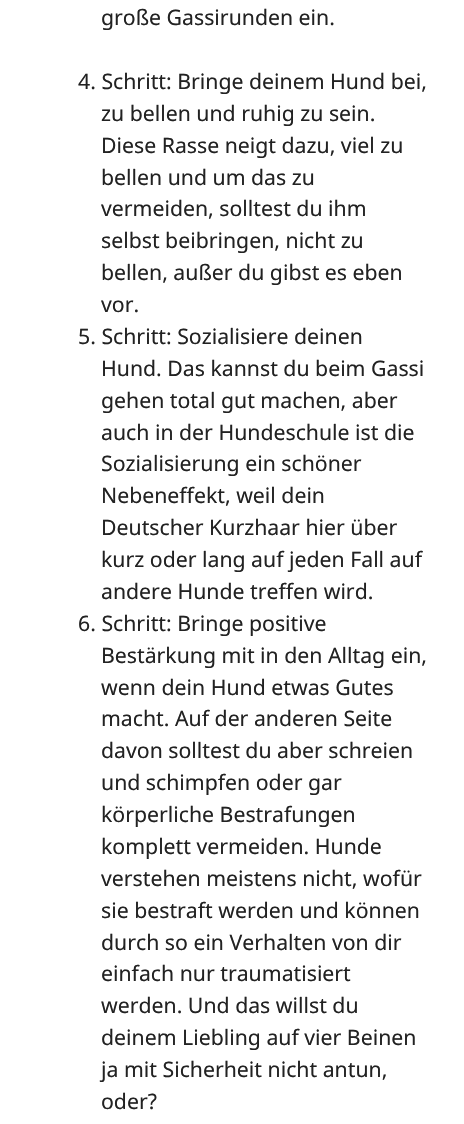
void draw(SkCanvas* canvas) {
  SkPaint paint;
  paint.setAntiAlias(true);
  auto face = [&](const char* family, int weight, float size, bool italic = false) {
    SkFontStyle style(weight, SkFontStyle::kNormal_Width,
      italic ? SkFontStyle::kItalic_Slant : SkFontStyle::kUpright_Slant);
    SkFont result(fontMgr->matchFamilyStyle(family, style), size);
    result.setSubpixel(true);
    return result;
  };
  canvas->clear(0xffffffff);
  auto f0 = face("Noto Sans", 400, 21.25f);
  paint.setColor(0xff222222);
  {
    const struct { const char* s; float x, y; } items[] = {
      {"große Gassirunden ein.", 101, 25},
      {"4. Schritt: Bringe deinem Hund bei,", 78, 89},
      {"zu bellen und ruhig zu sein.", 101, 121},
      {"Diese Rasse neigt dazu, viel zu", 101, 153},
      {"bellen und um das zu", 101, 185},
      {"vermeiden, solltest du ihm", 101, 216},
      {"selbst beibringen, nicht zu", 101, 248},
      {"bellen, außer du gibst es eben", 101, 280},
      {"vor.", 101, 312},
      {"5. Schritt: Sozialisiere deinen", 78, 344},
      {"Hund. Das kannst du beim Gassi", 101, 376},
      {"gehen total gut machen, aber", 101, 408},
      {"auch in der Hundeschule ist die", 101, 440},
      {"Sozialisierung ein schöner", 101, 471},
      {"Nebeneffekt, weil dein", 101, 503},
      {"Deutscher Kurzhaar hier über", 101, 535},
      {"kurz oder lang auf jeden Fall auf", 101, 567},
      {"andere Hunde treffen wird.", 101, 599},
      {"6. Schritt: Bringe positive", 78, 631},
      {"Bestärkung mit in den Alltag ein,", 101, 663},
      {"wenn dein Hund etwas Gutes", 101, 695},
      {"macht. Auf der anderen Seite", 101, 726},
      {"davon solltest du aber schreien", 101, 758},
      {"und schimpfen oder gar", 101, 790},
      {"körperliche Bestrafungen", 101, 822},
      {"komplett vermeiden. Hunde", 101, 854},
      {"verstehen meistens nicht, wofür", 101, 886},
      {"sie bestraft werden und können", 101, 918},
      {"durch so ein Verhalten von dir", 101, 950},
      {"einfach nur traumatisiert", 101, 981},
      {"werden. Und das willst du", 101, 1013},
      {"deinem Liebling auf vier Beinen", 101, 1045},
      {"ja mit Sicherheit nicht antun,", 101, 1077},
      {"oder?", 101, 1109},
    };
    for (auto [s, x, y] : items) {
      canvas->drawString(s, x, y, f0, paint);
    }
  }
}
